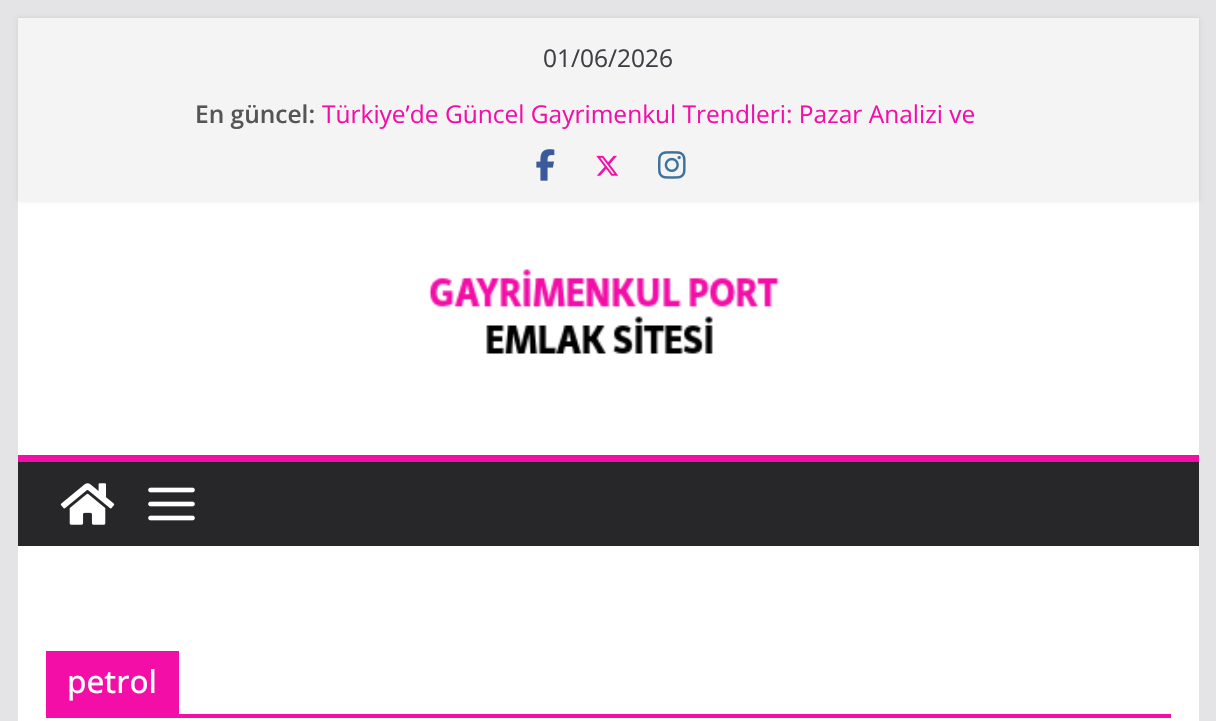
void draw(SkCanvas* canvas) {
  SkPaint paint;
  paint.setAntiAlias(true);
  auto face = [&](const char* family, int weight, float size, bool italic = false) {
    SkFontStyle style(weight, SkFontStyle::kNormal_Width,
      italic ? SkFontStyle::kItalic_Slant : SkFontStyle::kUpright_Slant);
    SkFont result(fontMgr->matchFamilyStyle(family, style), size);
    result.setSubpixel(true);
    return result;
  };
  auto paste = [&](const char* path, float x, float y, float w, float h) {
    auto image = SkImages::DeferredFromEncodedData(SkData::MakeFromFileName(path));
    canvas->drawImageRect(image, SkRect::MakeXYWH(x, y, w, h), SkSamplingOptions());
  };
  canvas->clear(0xffe4e4e7);
  paint.setColor(0xffffffff);
  canvas->drawRect(SkRect::MakeXYWH(18, 201, 1181, 254), paint);
  paint.setColor(0x1a000000);
  paint.setMaskFilter(SkMaskFilter::MakeBlur(kNormal_SkBlurStyle, 2));
  canvas->drawRect(SkRect::MakeXYWH(18, 18, 1181, 183), paint);
  paint.setMaskFilter(nullptr);
  paint.setColor(0xfff4f4f5);
  canvas->drawRect(SkRect::MakeXYWH(18, 18, 1181, 183), paint);
  paste("img/1.png", 536, 149, 19, 32);
  paste("img/2.png", 596, 155, 23, 21);
  paste("img/3.png", 658, 151, 28, 28);
  paste("img/4.png", 428, 269, 352, 85);
  paint.setColor(0xff27272a);
  canvas->drawRect(SkRect::MakeXYWH(18, 462, 1181, 84), paint);
  paint.setColor(0xfff30fa7);
  canvas->drawRect(SkRect::MakeXYWH(18, 455, 1181, 7), paint);
  paste("img/5.png", 60, 483, 55, 42);
  paste("img/6.png", 148, 487, 47, 34);
  {
    const struct { float x, y, w, h; SkColor color; } items[] = {
      {18, 546, 1181, 175, 0xffffffff},
      {46, 714, 1125, 4, 0xfff30fa7},
      {46, 651, 133, 63, 0xfff30fa7},
    };
    for (auto [x, y, w, h, color] : items) {
      paint.setColor(color);
      canvas->drawRect(SkRect::MakeXYWH(x, y, w, h), paint);
    }
  }
  auto f0 = face("Open Sans", 400, 24.5f);
  paint.setColor(0xff3f3f46);
  canvas->drawString("01/06/2026", 543, 67, f0, paint);
  auto f1 = face("Open Sans", 600, 24.5f);
  paint.setColor(0xff555555);
  canvas->drawString("En güncel:", 195, 123, f1, paint);
  paint.setColor(0xfff30fa7);
  canvas->drawString("Türkiye’de Güncel Gayrimenkul Trendleri: Pazar Analizi ve", 322, 123, f0, paint);
  auto f2 = face("Open Sans", 500, 31.5f);
  paint.setColor(0xffffffff);
  canvas->drawString("petrol", 67, 693, f2, paint);
}
